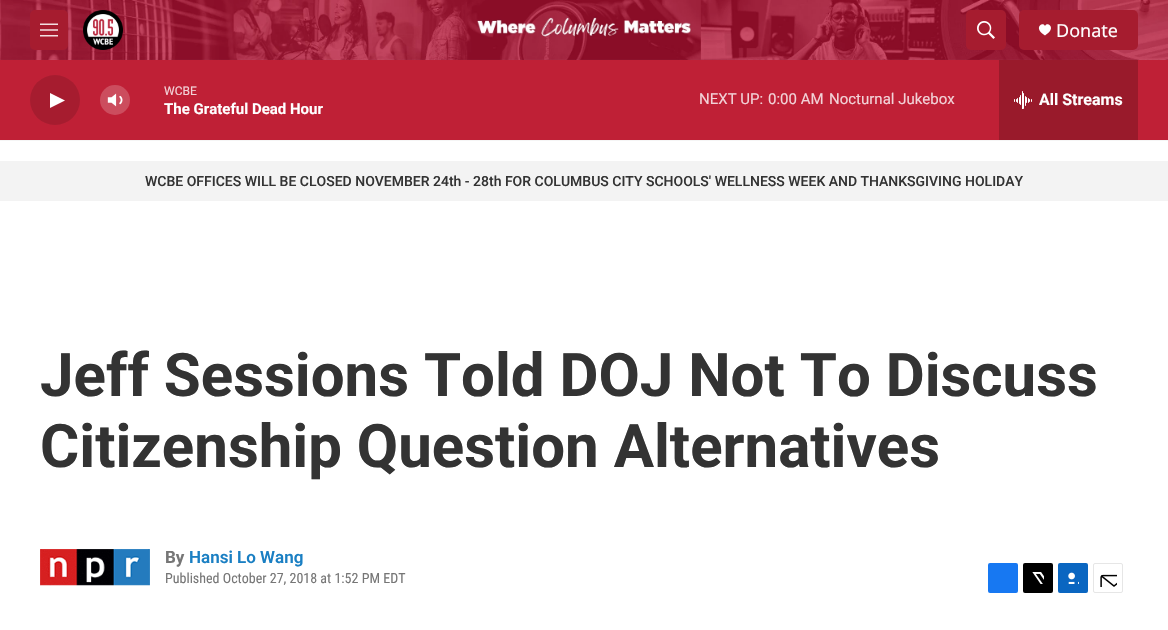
void draw(SkCanvas* canvas) {
  SkPaint paint;
  paint.setAntiAlias(true);
  auto face = [&](const char* family, int weight, float size, bool italic = false) {
    SkFontStyle style(weight, SkFontStyle::kNormal_Width,
      italic ? SkFontStyle::kItalic_Slant : SkFontStyle::kUpright_Slant);
    SkFont result(fontMgr->matchFamilyStyle(family, style), size);
    result.setSubpixel(true);
    return result;
  };
  auto paste = [&](const char* path, float x, float y, float w, float h) {
    auto image = SkImages::DeferredFromEncodedData(SkData::MakeFromFileName(path));
    canvas->drawImageRect(image, SkRect::MakeXYWH(x, y, w, h), SkSamplingOptions());
  };
  auto shape = [&](const char* data, bool evenOdd = false) {
    SkPath result = *SkParsePath::FromSVGString(data);
    if (evenOdd) result.setFillType(SkPathFillType::kEvenOdd);
    return result;
  };
  canvas->clear(0xffffffff);
  paint.setColor(0xfff5f5f5);
  canvas->drawRect(SkRect::MakeXYWH(0, 140, 1168, 1), paint);
  paste("img/1.png", 0, 0, 1168, 60);
  paint.setColor(0xffa61c2f);
  canvas->drawRoundRect(SkRect::MakeXYWH(30, 10, 38, 40), 5, 5, paint);
  paste("img/2.png", 40, 23, 18, 14);
  paste("img/3.png", 83, 10, 40, 40);
  canvas->drawRoundRect(SkRect::MakeXYWH(966, 10, 40, 40), 5, 5, paint);
  paste("img/4.png", 977, 21, 18, 18);
  canvas->drawRoundRect(SkRect::MakeXYWH(1019, 10, 119, 40), 5, 5, paint);
  paint.setColor(0xffffffff);
  canvas->drawPath(shape("M1045 26C1043 21 1032.5 28 1045 35.5C1057.5 28 1047 21 1045 26Z"), paint);
  paint.setColor(0xffbf2036);
  canvas->drawRect(SkRect::MakeXYWH(0, 60, 1168, 80), paint);
  paint.setColor(0xffa61c2f);
  canvas->drawCircle(55, 100, 25, paint);
  paint.setColor(0xffffffff);
  canvas->drawPath(shape("M50 93L65 100.5L50 108Z"), paint);
  paste("img/5.png", 107, 93, 16, 14);
  paint.setColor(0x33ffffff);
  canvas->drawCircle(115, 100, 15, paint);
  paint.setColor(0xff991a2b);
  canvas->drawRect(SkRect::MakeXYWH(999, 60, 139, 80), paint);
  paste("img/6.png", 1014, 91, 18, 18);
  paint.setColor(0xfff3f3f3);
  canvas->drawRect(SkRect::MakeXYWH(0, 161, 1168, 40), paint);
  paste("img/7.png", 40, 549, 110, 37);
  paint.setColor(0xff1778f2);
  canvas->drawRoundRect(SkRect::MakeXYWH(988, 563, 30, 30), 2, 2, paint);
  paint.setColor(0xff000000);
  canvas->drawRoundRect(SkRect::MakeXYWH(1023, 563, 30, 30), 2, 2, paint);
  paste("img/8.png", 1032, 572, 12, 12);
  paint.setColor(0xff0a66c1);
  canvas->drawRoundRect(SkRect::MakeXYWH(1058, 563, 30, 30), 2, 2, paint);
  paste("img/9.png", 1068, 572, 11, 12);
  paint.setStroke(true);
  paint.setStrokeWidth(1);
  paint.setColor(0xffe6e6e6);
  canvas->drawRoundRect(SkRect::MakeXYWH(1093.5f, 563.5f, 29, 29), 1.5f, 1.5f, paint);
  paste("img/10.png", 1100, 574, 17, 13);
  auto f0 = face("Noto Sans", 400, 18);
  paint.setStroke(false);
  paint.setColor(0xffffffff);
  canvas->drawString("Donate", 1056, 37, f0, paint);
  auto f1 = face("Roboto", 400, 12);
  paint.setColor(0xfff2d2d7);
  canvas->drawString("WCBE", 164, 95, f1, paint);
  auto f2 = face("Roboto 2", 700, 15);
  paint.setColor(0xffffffff);
  canvas->drawString("The Grateful Dead Hour", 164, 114, f2, paint);
  auto f3 = face("Roboto", 400, 15);
  paint.setColor(0xfff2d2d7);
  {
    const struct { const char* s; float x, y; } items[] = {
      {"NEXT UP:", 699, 104},
      {"0:00 AM", 768, 104},
      {"Nocturnal Jukebox", 829, 104},
    };
    for (auto [s, x, y] : items) {
      canvas->drawString(s, x, y, f3, paint);
    }
  }
  auto f4 = face("Roboto 2", 700, 16);
  paint.setColor(0xffffffff);
  canvas->drawString("All Streams", 1039, 105, f4, paint);
  auto f5 = face("Roboto", 500, 14);
  paint.setColor(0xff333333);
  canvas->drawString("WCBE OFFICES WILL BE CLOSED NOVEMBER 24th - 28th FOR COLUMBUS CITY SCHOOLS' WELLNESS WEEK AND THANKSGIVING HOLIDAY", 145, 186, f5, paint);
  auto f6 = face("Roboto", 700, 60);
  canvas->drawString("Jeff Sessions Told DOJ Not To Discuss", 40, 396, f6, paint);
  canvas->drawString("Citizenship Question Alternatives", 40, 467, f6, paint);
  auto f7 = face("Roboto", 700, 17);
  paint.setColor(0xff767676);
  canvas->drawString("By", 165, 563, f7, paint);
  auto f8 = face("Roboto", 600, 17);
  paint.setColor(0xff1a7fc3);
  canvas->drawString("Hansi Lo Wang", 189, 563, f8, paint);
  auto f9 = face("Roboto Condensed", 400, 14);
  paint.setColor(0xff767676);
  canvas->drawString("Published October 27, 2018 at 1:52 PM EDT", 165, 583, f9, paint);
}
